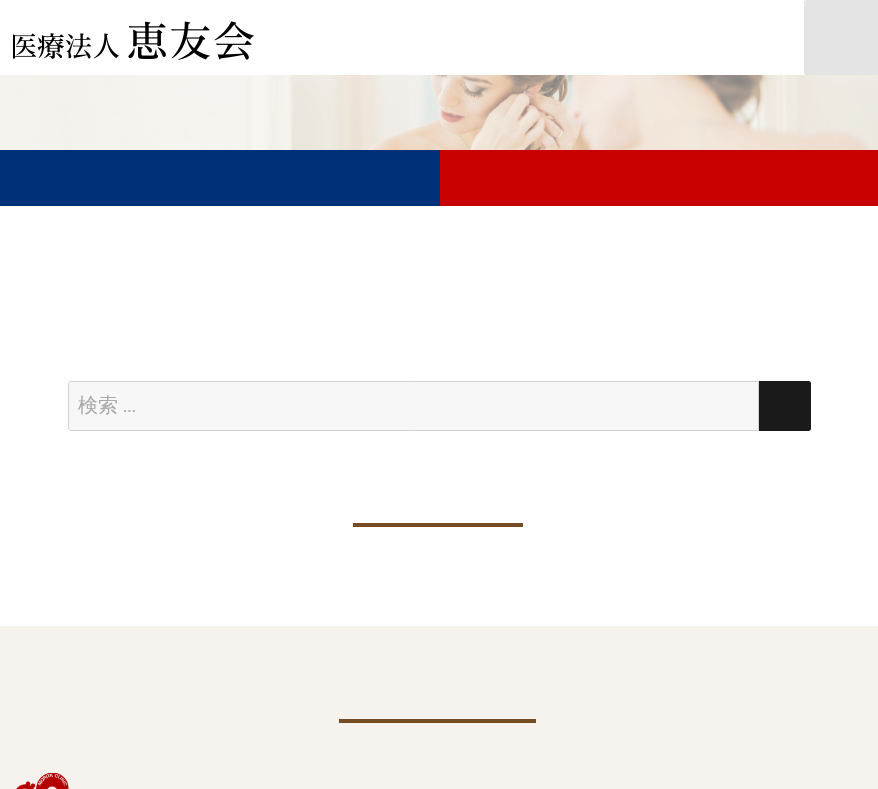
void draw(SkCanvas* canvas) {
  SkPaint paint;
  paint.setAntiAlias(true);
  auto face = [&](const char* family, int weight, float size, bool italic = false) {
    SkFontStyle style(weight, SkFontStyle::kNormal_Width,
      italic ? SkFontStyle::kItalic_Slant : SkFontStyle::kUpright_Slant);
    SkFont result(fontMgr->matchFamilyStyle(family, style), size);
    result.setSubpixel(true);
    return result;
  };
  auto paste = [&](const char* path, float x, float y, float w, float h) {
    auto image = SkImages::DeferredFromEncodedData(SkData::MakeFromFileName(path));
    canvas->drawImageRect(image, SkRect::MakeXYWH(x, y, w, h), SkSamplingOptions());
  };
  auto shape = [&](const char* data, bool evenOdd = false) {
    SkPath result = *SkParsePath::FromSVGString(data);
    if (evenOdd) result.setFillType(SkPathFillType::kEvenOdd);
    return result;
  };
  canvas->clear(0xffffffff);
  paste("img/1.png", 13, 21, 241, 39);
  paint.setColor(0xffe4e4e4);
  canvas->drawRoundRect(SkRect::MakeXYWH(804, 0, 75, 75), 2.5f, 2.5f, paint);
  paste("img/2.png", 0, 75, 878, 75);
  paint.setColor(0xff003178);
  canvas->drawRect(SkRect::MakeXYWH(0, 150, 440, 56), paint);
  paint.setColor(0xffc80000);
  canvas->drawRect(SkRect::MakeXYWH(440, 150, 438, 56), paint);
  paint.setColor(0xfff7f7f7);
  canvas->drawPath(shape("M70.5 381.5H758.5V430.5H70.5C69.5 430.5 68.5 429.5 68.5 428.5V383.5C68.5 382.5 69.5 381.5 70.5 381.5Z"), paint);
  paint.setStroke(true);
  paint.setStrokeWidth(1);
  paint.setColor(0xffd1d1d1);
  canvas->drawPath(shape("M70.5 381.5H758.5V430.5H70.5C69.5 430.5 68.5 429.5 68.5 428.5V383.5C68.5 382.5 69.5 381.5 70.5 381.5Z"), paint);
  paint.setStroke(false);
  paint.setColor(0xff1a1a1a);
  canvas->drawPath(shape("M759 381H808.5C810 381 811 382 811 383.5V428.5C811 430 810 431 808.5 431H759Z"), paint);
  {
    const struct { float x, y, w, h; SkColor color; } items[] = {
      {353, 523, 170, 4, 0xff754c24},
      {0, 626, 878, 163, 0xfff6f3ef},
      {339, 719, 197, 4, 0xff754c24},
    };
    for (auto [x, y, w, h, color] : items) {
      paint.setColor(color);
      canvas->drawRect(SkRect::MakeXYWH(x, y, w, h), paint);
    }
  }
  paste("img/3.png", 16, 773, 53, 16);
  auto f0 = face("WenQuanYi Zen Hei", 500, 20);
  paint.setColor(0xffaaaaaa);
  canvas->drawString("検索", 78, 412, f0, paint);
  auto f1 = face("Montserrat", 400, 20);
  canvas->drawString("…", 123, 412, f1, paint);
}
